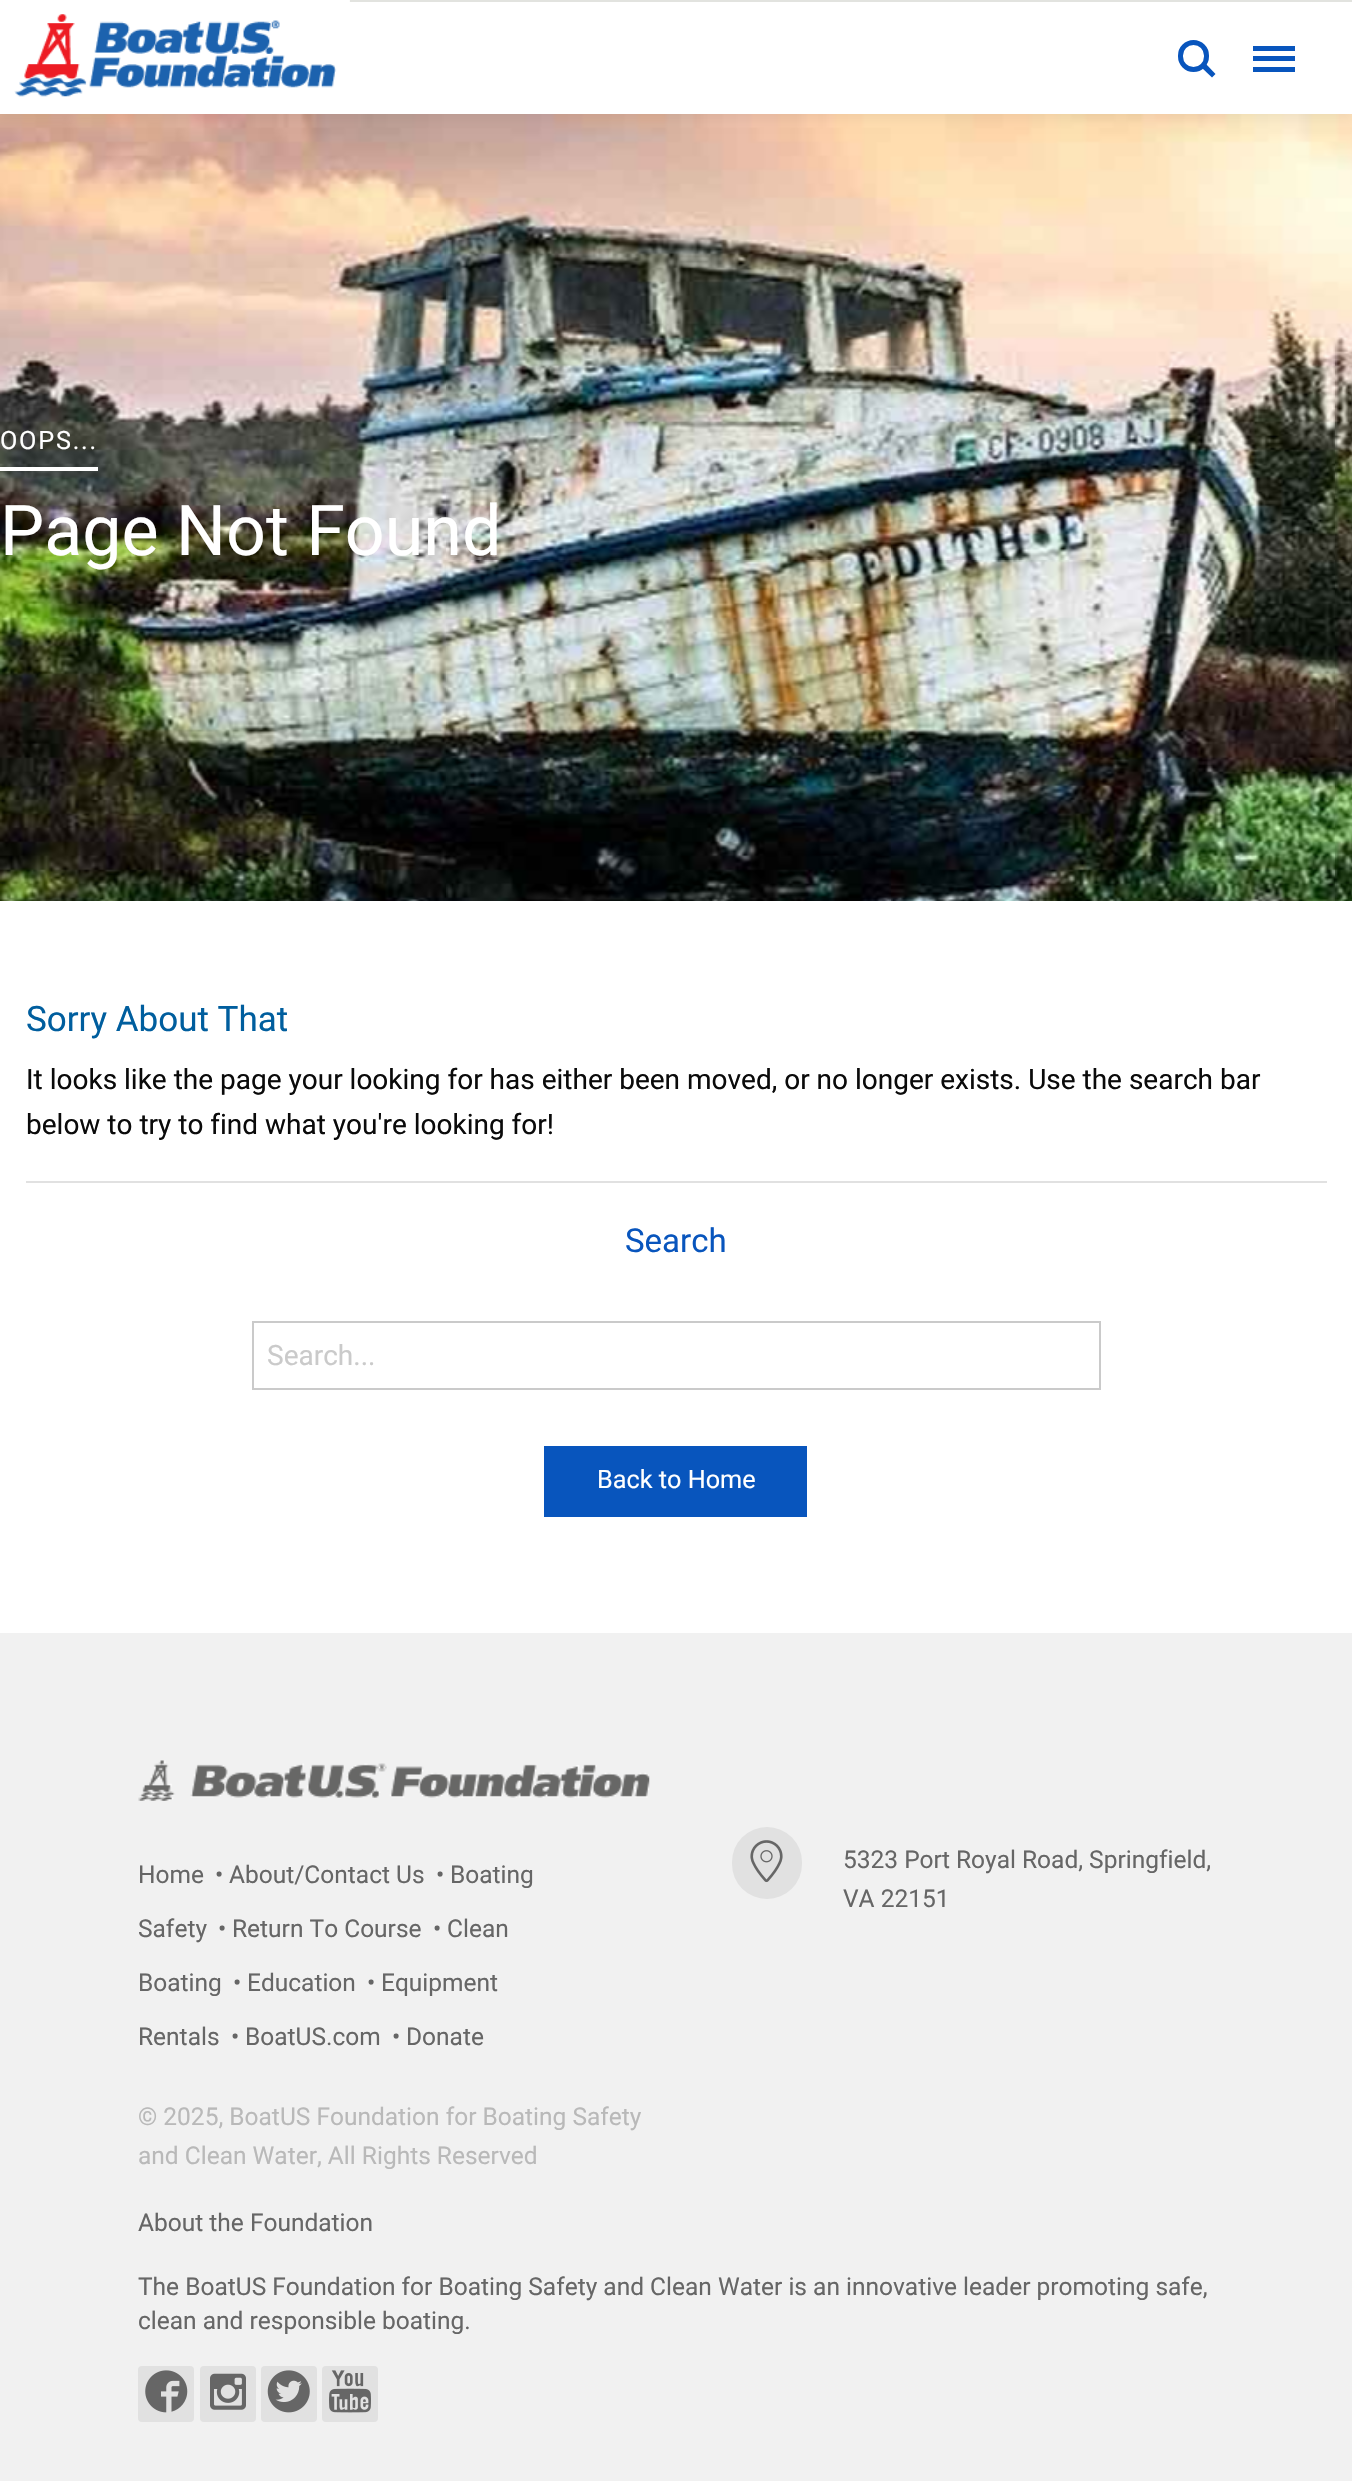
void draw(SkCanvas* canvas) {
  SkPaint paint;
  paint.setAntiAlias(true);
  auto face = [&](const char* family, int weight, float size, bool italic = false) {
    SkFontStyle style(weight, SkFontStyle::kNormal_Width,
      italic ? SkFontStyle::kItalic_Slant : SkFontStyle::kUpright_Slant);
    SkFont result(fontMgr->matchFamilyStyle(family, style), size);
    result.setSubpixel(true);
    return result;
  };
  auto writeSpaced = [&](const char* s, float x, float y, const SkFont& font, const SkPaint& ink, float letter, float word) {
    std::vector<SkGlyphID> glyphs(font.countText(s, strlen(s), SkTextEncoding::kUTF8));
    std::vector<float> xs(glyphs.size());
    font.textToGlyphs(s, strlen(s), SkTextEncoding::kUTF8, glyphs);
    font.getXPos(glyphs, xs, x);
    float extra = 0;
    for (size_t i = 0; i < glyphs.size(); i++) {
      xs[i] += extra;
      extra += letter + word * (glyphs[i] == font.unicharToGlyph(' '));
    }
    canvas->drawTextBlob(SkTextBlob::MakeFromPosHGlyphs(glyphs, xs, y, font), 0, 0, ink);
  };
  auto paste = [&](const char* path, float x, float y, float w, float h) {
    auto image = SkImages::DeferredFromEncodedData(SkData::MakeFromFileName(path));
    canvas->drawImageRect(image, SkRect::MakeXYWH(x, y, w, h), SkSamplingOptions());
  };
  auto shape = [&](const char* data, bool evenOdd = false) {
    SkPath result = *SkParsePath::FromSVGString(data);
    if (evenOdd) result.setFillType(SkPathFillType::kEvenOdd);
    return result;
  };
  canvas->clear(0xffffffff);
  paste("img/2.png", 0, 114, 1352, 787);
  paint.setColor(0x0d000000);
  paint.setMaskFilter(SkMaskFilter::MakeBlur(kNormal_SkBlurStyle, 5));
  canvas->drawRect(SkRect::MakeXYWH(0, 5, 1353, 114), paint);
  paint.setMaskFilter(nullptr);
  paint.setColor(0xffffffff);
  canvas->drawRect(SkRect::MakeXYWH(0, 2, 1352, 112), paint);
  paint.setColor(0xffe2e3df);
  canvas->drawRect(SkRect::MakeXYWH(349, 0, 1003, 2), paint);
  paste("img/1.png", 0, 0, 350, 97);
  paint.setStroke(true);
  paint.setStrokeWidth(5);
  paint.setColor(0xff0855bd);
  canvas->drawRoundRect(SkRect::MakeXYWH(1180.5f, 42.5f, 26, 27), 13, 13, paint);
  paint.setStroke(false);
  canvas->drawPath(shape("M1206 64L1215.5 74L1212 77.5L1202 68Z"), paint);
  {
    const struct { float x, y, w, h; SkColor color; } items[] = {
      {1253, 56, 42, 5, 0xff0855bd},
      {1253, 46, 42, 5, 0xff0855bd},
      {1253, 67, 42, 5, 0xff0855bd},
      {0, 467, 98, 4, 0xffffffff},
      {26, 1181, 1301, 2, 0xffe1e1e1},
    };
    for (auto [x, y, w, h, color] : items) {
      paint.setColor(color);
      canvas->drawRect(SkRect::MakeXYWH(x, y, w, h), paint);
    }
  }
  paint.setStroke(true);
  paint.setStrokeWidth(2);
  paint.setColor(0xffcacaca);
  canvas->drawRect(SkRect::MakeXYWH(253, 1322, 847, 67), paint);
  paint.setStroke(false);
  paint.setColor(0xff0855bd);
  canvas->drawRect(SkRect::MakeXYWH(544, 1446, 263, 71), paint);
  paint.setColor(0xfff1f1f1);
  canvas->drawRect(SkRect::MakeXYWH(0, 1633, 1352, 848), paint);
  paste("img/3.png", 138, 1760, 512, 41);
  paint.setColor(0xffe1e1e1);
  canvas->drawRoundRect(SkRect::MakeXYWH(732, 1827, 70, 72), 35, 35, paint);
  paste("img/4.png", 750, 1840, 33, 43);
  canvas->drawRoundRect(SkRect::MakeXYWH(138, 2366, 56, 56), 4, 4, paint);
  paste("img/5.png", 145, 2370, 43, 43);
  canvas->drawRoundRect(SkRect::MakeXYWH(200, 2366, 56, 56), 4, 4, paint);
  paste("img/6.png", 210, 2373, 36, 37);
  canvas->drawRoundRect(SkRect::MakeXYWH(261, 2366, 56, 56), 4, 4, paint);
  paste("img/7.png", 267, 2370, 43, 43);
  canvas->drawRoundRect(SkRect::MakeXYWH(322, 2366, 56, 56), 4, 4, paint);
  paste("img/8.png", 329, 2370, 42, 43);
  auto f0 = face("Roboto", 400, 25.25f);
  paint.setColor(0xffffffff);
  writeSpaced("OOPS...", 0, 449, f0, paint, 1.75f, 0);
  auto f1 = face("Roboto", 400, 70);
  canvas->drawString("Page Not Found", 0, 555, f1, paint);
  auto f2 = face("Roboto", 400, 35);
  paint.setColor(0xff005e9e);
  canvas->drawString("Sorry About That", 26, 1031, f2, paint);
  auto f3 = face("Roboto", 400, 28);
  paint.setColor(0xff0a0a0a);
  canvas->drawString("It looks like the page your looking for has either been moved, or no longer exists. Use the search bar", 26, 1089, f3, paint);
  canvas->drawString("below to try to find what you're looking for!", 26, 1134, f3, paint);
  auto f4 = face("Roboto", 400, 33);
  paint.setColor(0xff0855bd);
  canvas->drawString("Search", 625, 1252, f4, paint);
  paint.setColor(0xffcacaca);
  canvas->drawString("Search...", 267, 1365, f3, paint);
  paint.setColor(0xffffffff);
  canvas->drawString("Back to Home", 597, 1488, f0, paint);
  auto f5 = face("Roboto", 400, 24.5f);
  paint.setColor(0xff666666);
  {
    const struct { const char* s; float x, y; } items[] = {
      {"Home", 138, 1883},
      {"•", 215, 1883},
      {"About/Contact Us", 229, 1883},
      {"•", 436, 1883},
      {"Boating", 450, 1883},
      {"Safety", 138, 1937},
      {"•", 218, 1937},
      {"Return To Course", 232, 1937},
      {"•", 433, 1937},
      {"Clean", 447, 1937},
      {"Boating", 138, 1991},
      {"•", 233, 1991},
      {"Education", 247, 1991},
      {"•", 367, 1991},
      {"Equipment", 381, 1991},
      {"Rentals", 138, 2045},
      {"•", 231, 2045},
      {"BoatUS.com", 245, 2045},
      {"•", 392, 2045},
      {"Donate", 406, 2045},
    };
    for (auto [s, x, y] : items) {
      canvas->drawString(s, x, y, f5, paint);
    }
  }
  paint.setColor(0xffb9b9b9);
  canvas->drawString("© 2025, BoatUS Foundation for Boating Safety", 138, 2125, f5, paint);
  canvas->drawString("and Clean Water, All Rights Reserved", 138, 2164, f5, paint);
  paint.setColor(0xff666666);
  {
    const struct { const char* s; float x, y; } items[] = {
      {"5323 Port Royal Road, Springfield,", 843, 1868},
      {"VA 22151", 843, 1907},
      {"About the Foundation", 138, 2231},
      {"The BoatUS Foundation for Boating Safety and Clean Water is an innovative leader promoting safe,", 138, 2295},
      {"clean and responsible boating.", 138, 2329},
    };
    for (auto [s, x, y] : items) {
      canvas->drawString(s, x, y, f5, paint);
    }
  }
}
